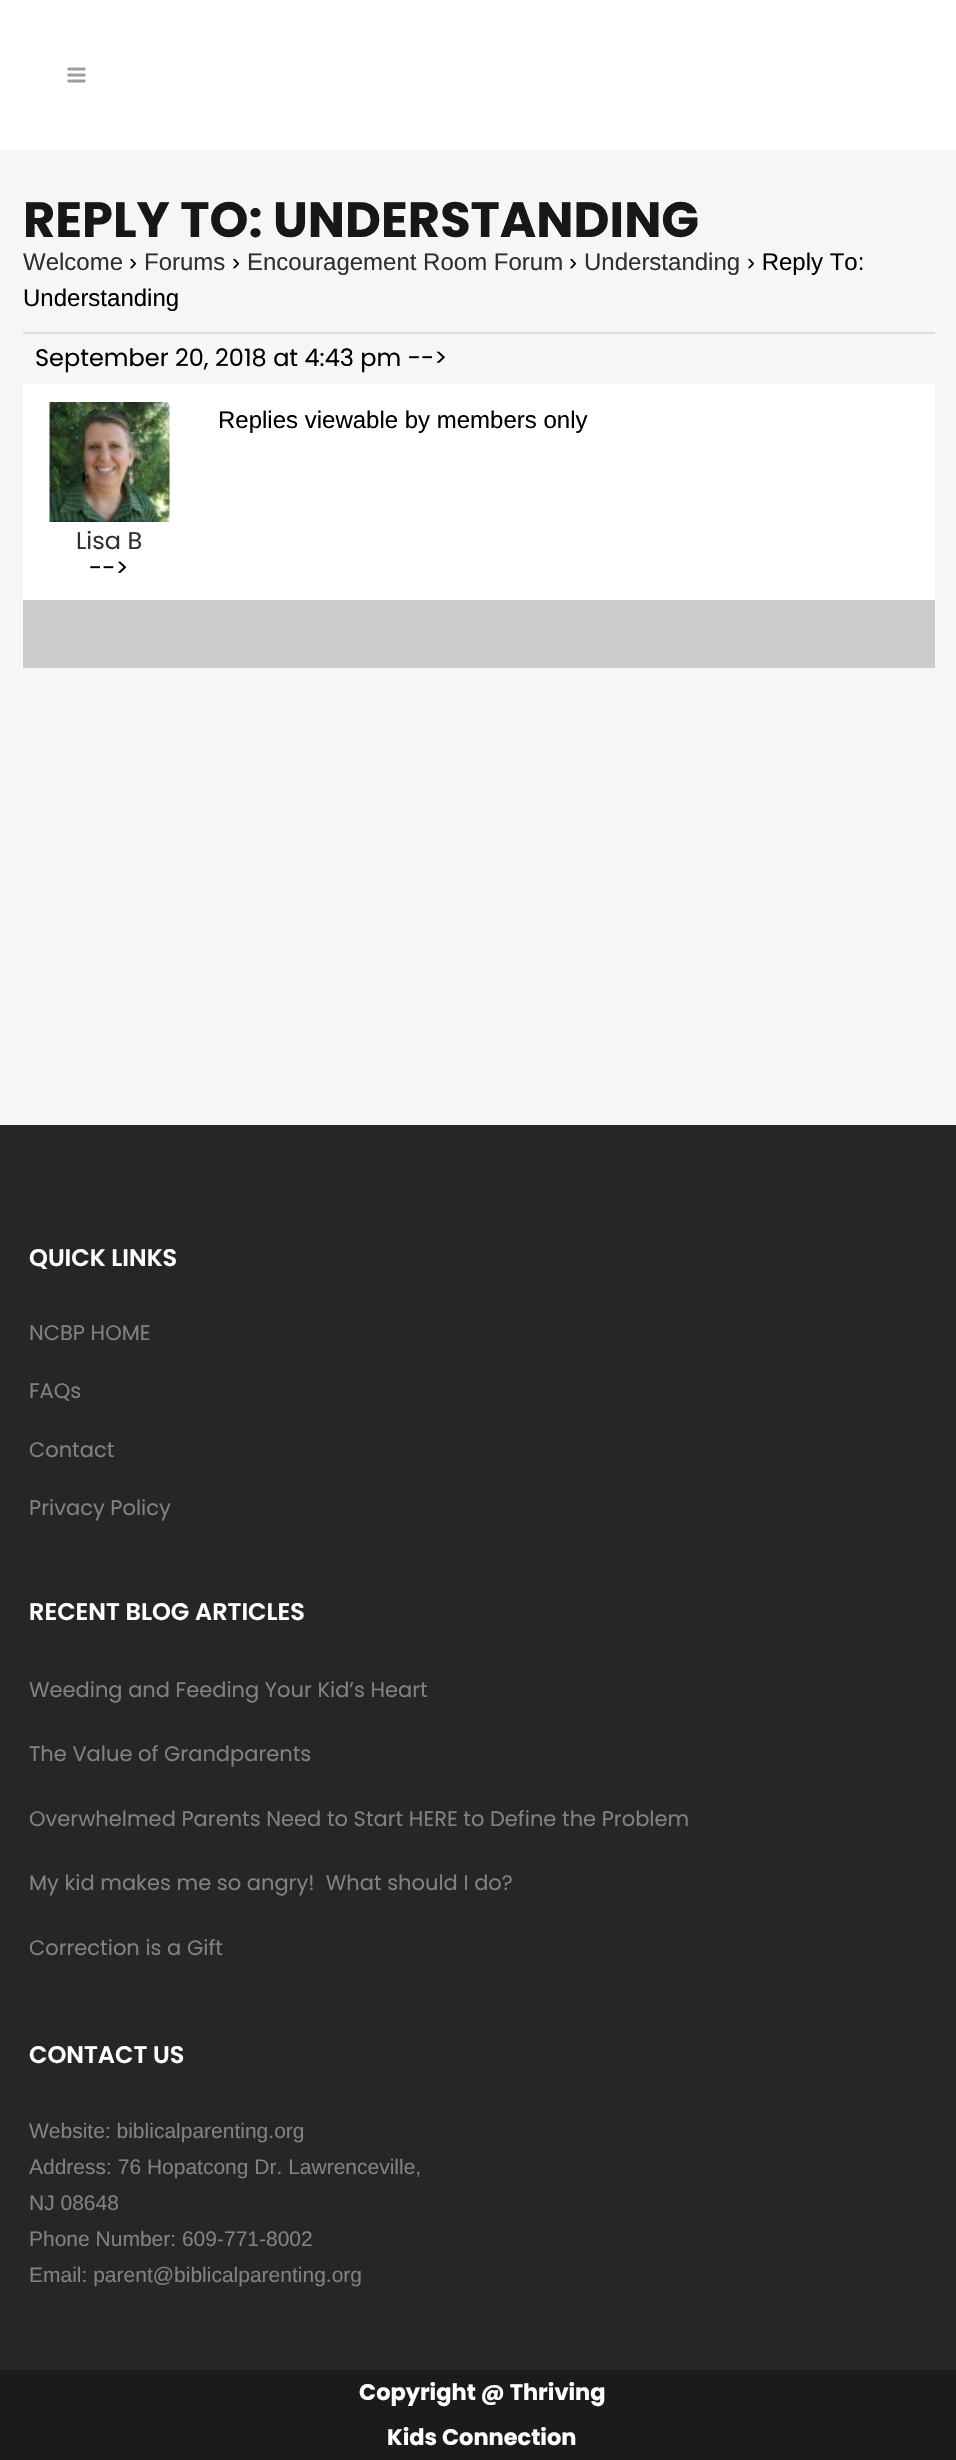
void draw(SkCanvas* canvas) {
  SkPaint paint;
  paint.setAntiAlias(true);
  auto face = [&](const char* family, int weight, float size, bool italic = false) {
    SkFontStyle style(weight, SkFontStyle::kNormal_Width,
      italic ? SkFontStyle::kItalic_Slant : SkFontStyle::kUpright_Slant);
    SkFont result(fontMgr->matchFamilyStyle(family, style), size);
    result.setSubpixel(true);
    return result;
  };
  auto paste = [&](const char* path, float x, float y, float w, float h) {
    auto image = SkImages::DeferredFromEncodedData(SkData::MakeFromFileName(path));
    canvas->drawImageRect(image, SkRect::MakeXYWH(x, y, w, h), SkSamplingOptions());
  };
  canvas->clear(0xfff6f6f6);
  paint.setColor(0xffffffff);
  canvas->drawRect(SkRect::MakeXYWH(0, 0, 956, 150), paint);
  paste("img/1.png", 67, 67, 19, 16);
  paint.setColor(0xffdddddd);
  canvas->drawRect(SkRect::MakeXYWH(23, 332, 912, 2), paint);
  paint.setColor(0xffffffff);
  canvas->drawRect(SkRect::MakeXYWH(23, 384, 912, 216), paint);
  paste("img/2.png", 49, 402, 121, 120);
  {
    const struct { float x, y, w, h; SkColor color; } items[] = {
      {23, 600, 912, 68, 0xffcccccc},
      {0, 1125, 956, 1245, 0xff262626},
      {0, 2370, 956, 90, 0xff1b1b1b},
    };
    for (auto [x, y, w, h, color] : items) {
      paint.setColor(color);
      canvas->drawRect(SkRect::MakeXYWH(x, y, w, h), paint);
    }
  }
  auto f0 = face("Poppins", 700, 49.5f);
  paint.setColor(0xff171717);
  canvas->drawString("REPLY TO: UNDERSTANDING", 23, 237, f0, paint);
  auto f1 = face("Liberation Sans", 400, 24);
  paint.setColor(0xff303030);
  canvas->drawString("Welcome", 23, 270, f1, paint);
  paint.setColor(0xff000000);
  canvas->drawString("›", 129, 270, f1, paint);
  paint.setColor(0xff303030);
  canvas->drawString("Forums", 144, 270, f1, paint);
  paint.setColor(0xff000000);
  canvas->drawString("›", 232, 270, f1, paint);
  paint.setColor(0xff303030);
  canvas->drawString("Encouragement Room Forum", 247, 270, f1, paint);
  paint.setColor(0xff000000);
  canvas->drawString("›", 569, 270, f1, paint);
  paint.setColor(0xff303030);
  canvas->drawString("Understanding", 584, 270, f1, paint);
  paint.setColor(0xff000000);
  canvas->drawString("› Reply To:", 747, 270, f1, paint);
  canvas->drawString("Understanding", 23, 306, f1, paint);
  auto f2 = face("Poppins", 400, 24);
  canvas->drawString("September 20, 2018 at 4:43 pm -->", 35, 366, f2, paint);
  canvas->drawString("Replies viewable by members only", 218, 428, f1, paint);
  paint.setColor(0xff303030);
  canvas->drawString("Lisa B", 76, 549, f2, paint);
  paint.setColor(0xff000000);
  canvas->drawString("-->", 89, 576, f2, paint);
  auto f3 = face("Poppins", 600, 24);
  paint.setColor(0xffffffff);
  canvas->drawString("QUICK LINKS", 29, 1266, f3, paint);
  auto f4 = face("Poppins", 400, 21);
  paint.setColor(0xff818181);
  {
    const struct { const char* s; float x, y; } items[] = {
      {"NCBP HOME", 29, 1340},
      {"FAQs", 29, 1398},
      {"Contact", 29, 1457},
      {"Privacy Policy", 29, 1515},
    };
    for (auto [s, x, y] : items) {
      canvas->drawString(s, x, y, f4, paint);
    }
  }
  paint.setColor(0xffffffff);
  canvas->drawString("RECENT BLOG ARTICLES", 29, 1620, f3, paint);
  paint.setColor(0xff818181);
  {
    const struct { const char* s; float x, y; } items[] = {
      {"Weeding and Feeding Your Kid’s Heart", 29, 1697},
      {"The Value of Grandparents", 29, 1761},
      {"Overwhelmed Parents Need to Start HERE to Define the Problem", 29, 1826},
      {"My kid makes me so angry!  What should I do?", 29, 1890},
      {"Correction is a Gift", 29, 1955},
    };
    for (auto [s, x, y] : items) {
      canvas->drawString(s, x, y, f4, paint);
    }
  }
  paint.setColor(0xffffffff);
  canvas->drawString("CONTACT US", 29, 2063, f3, paint);
  auto f5 = face("Liberation Sans", 400, 21);
  paint.setColor(0xff818181);
  {
    const struct { const char* s; float x, y; } items[] = {
      {"Website: biblicalparenting.org", 29, 2138},
      {"Address: 76 Hopatcong Dr. Lawrenceville,", 29, 2174},
      {"NJ 08648", 29, 2210},
      {"Phone Number: 609-771-8002", 29, 2246},
      {"Email: parent@biblicalparenting.org", 29, 2282},
    };
    for (auto [s, x, y] : items) {
      canvas->drawString(s, x, y, f5, paint);
    }
  }
  auto f6 = face("Poppins", 700, 22.5f);
  paint.setColor(0xffffffff);
  canvas->drawString("Copyright @ Thriving", 359, 2400, f6, paint);
  canvas->drawString("Kids Connection", 387, 2445, f6, paint);
}
